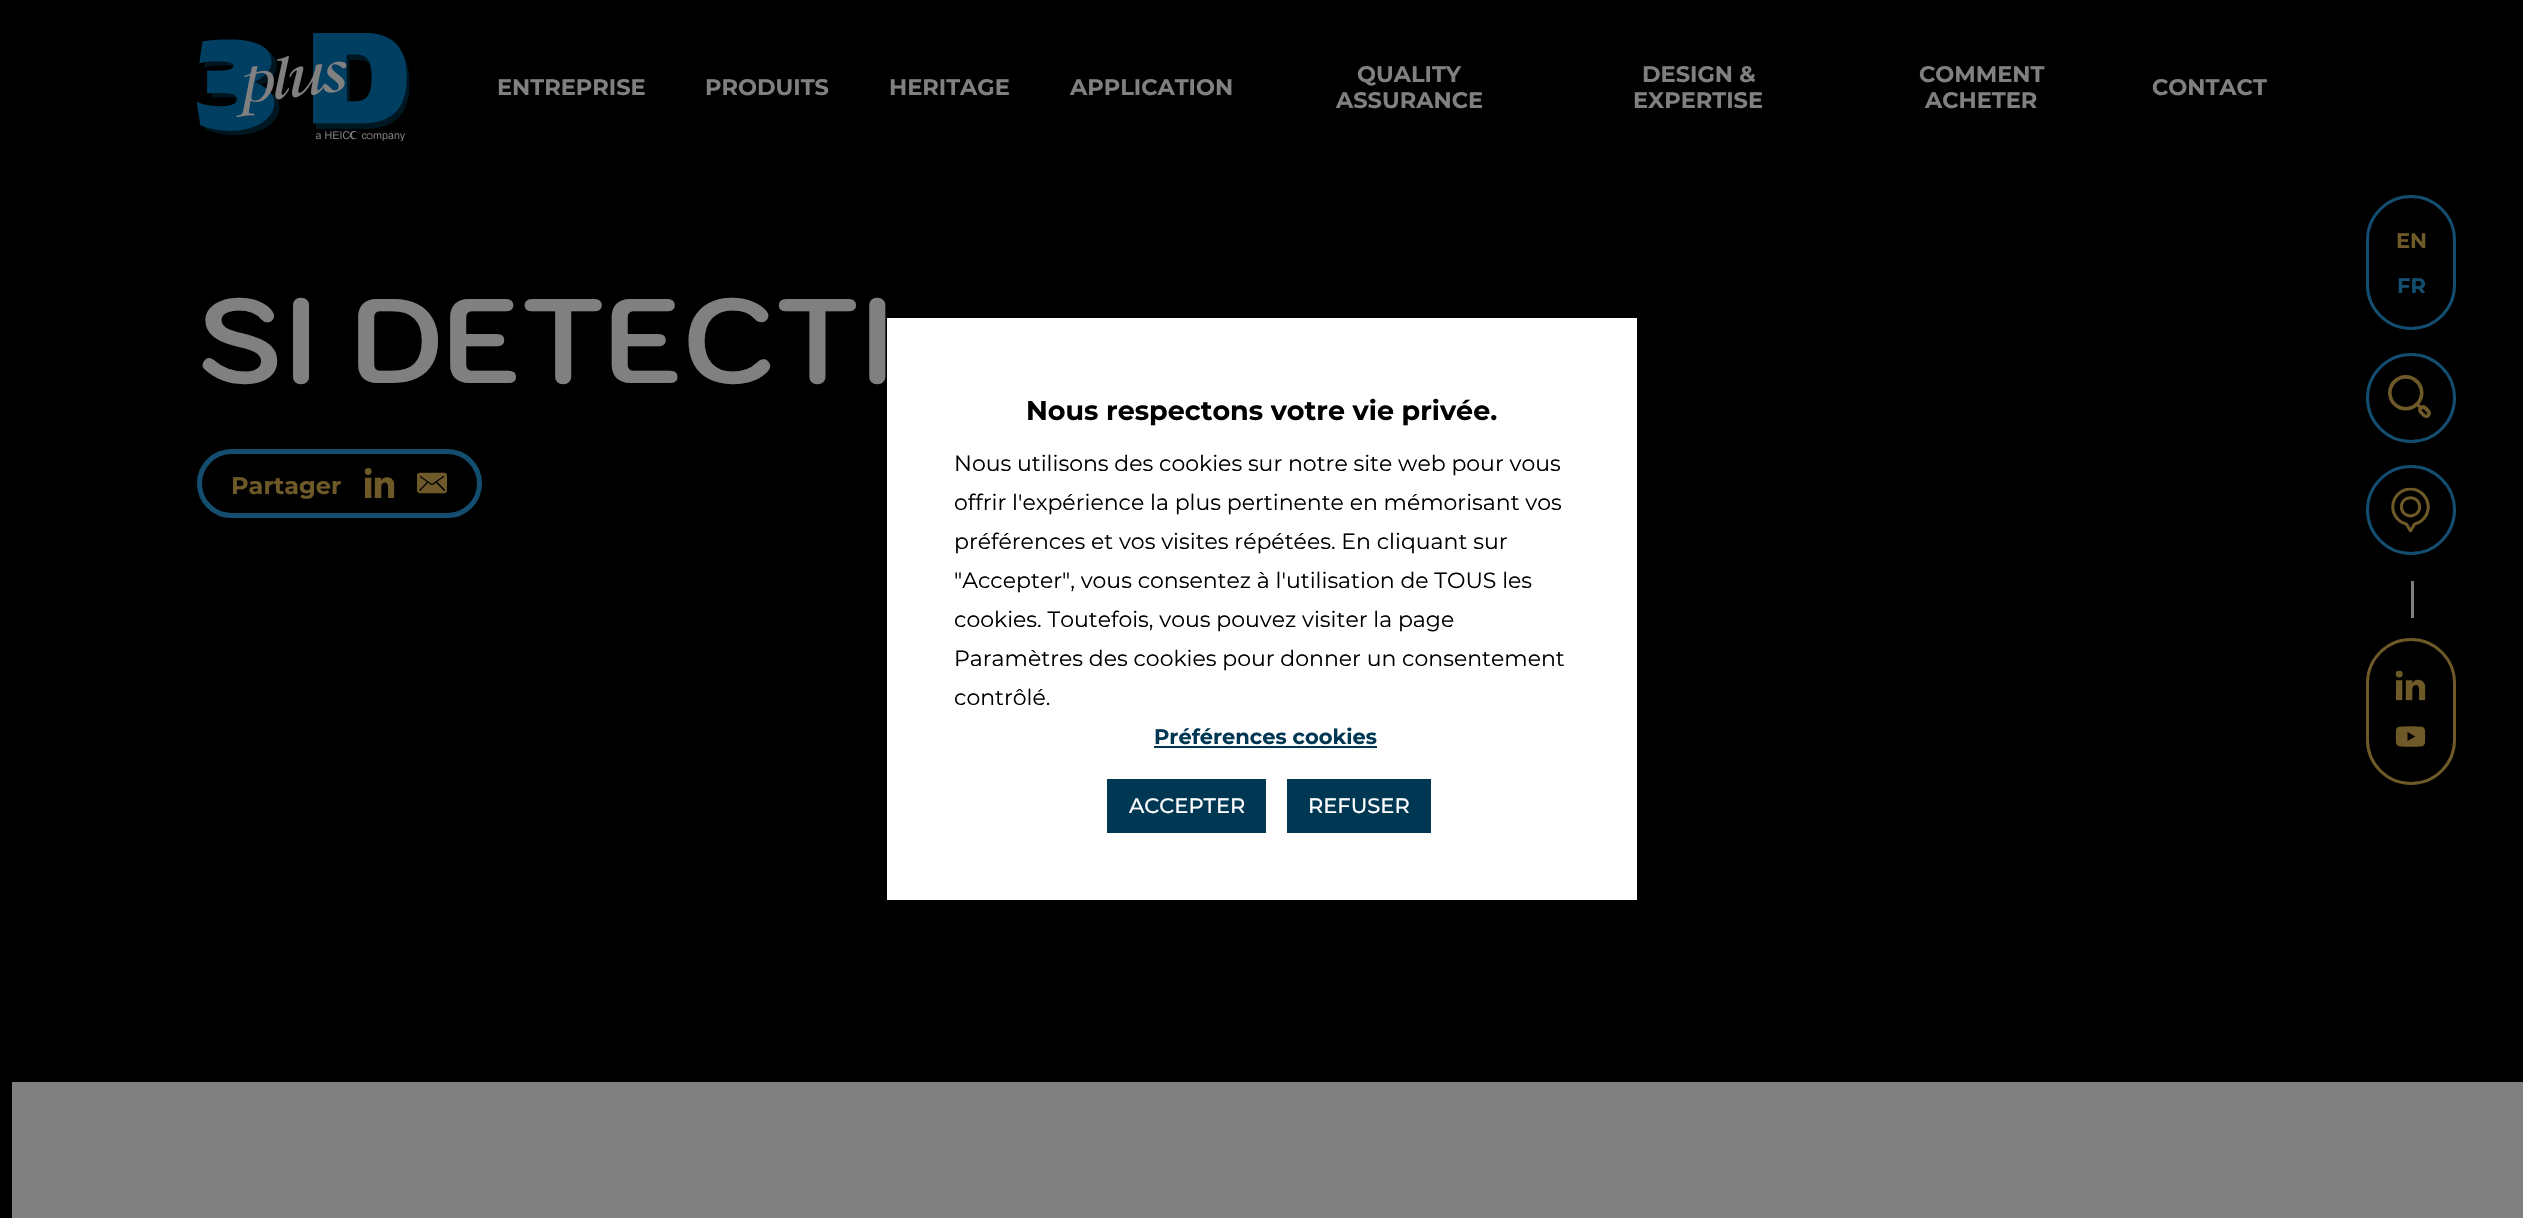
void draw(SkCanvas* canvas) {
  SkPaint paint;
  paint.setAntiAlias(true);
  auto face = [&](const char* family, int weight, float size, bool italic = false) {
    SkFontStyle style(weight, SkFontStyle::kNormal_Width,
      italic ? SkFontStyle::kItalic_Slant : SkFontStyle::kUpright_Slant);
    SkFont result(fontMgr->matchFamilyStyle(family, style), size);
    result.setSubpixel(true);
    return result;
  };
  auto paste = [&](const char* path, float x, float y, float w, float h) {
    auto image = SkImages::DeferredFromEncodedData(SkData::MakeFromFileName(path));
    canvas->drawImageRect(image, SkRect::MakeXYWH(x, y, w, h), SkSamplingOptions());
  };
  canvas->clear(0xff000000);
  paste("img/1.png", 197, 33, 213, 108);
  paint.setStroke(true);
  paint.setStrokeWidth(3);
  paint.setColor(0xff134e70);
  canvas->drawRoundRect(SkRect::MakeXYWH(2367.5f, 196.5f, 87, 132), 43.5f, 43.5f, paint);
  canvas->drawCircle(2411, 398, 43.5f, paint);
  paste("img/2.png", 2388, 375, 43, 43);
  canvas->drawCircle(2411, 510, 43.5f, paint);
  paste("img/3.png", 2391, 487, 39, 46);
  paint.setColor(0xff6e5929);
  canvas->drawRoundRect(SkRect::MakeXYWH(2367.5f, 639.5f, 87, 144), 43.5f, 43.5f, paint);
  paint.setStroke(false);
  paint.setColor(0xff808080);
  canvas->drawRect(SkRect::MakeXYWH(2411, 581, 3, 37), paint);
  paste("img/4.png", 2395, 670, 31, 31);
  paste("img/5.png", 2395, 726, 31, 21);
  paint.setStroke(true);
  paint.setStrokeWidth(5);
  paint.setColor(0xff134e70);
  canvas->drawRoundRect(SkRect::MakeXYWH(199.5f, 451.5f, 280, 64), 32, 32, paint);
  paste("img/6.png", 364, 468, 31, 30);
  paste("img/7.png", 417, 472, 30, 22);
  paint.setStroke(false);
  paint.setColor(0xff808080);
  canvas->drawRect(SkRect::MakeXYWH(12, 1082, 2511, 136), paint);
  paint.setColor(0x80000000);
  paint.setMaskFilter(SkMaskFilter::MakeBlur(kNormal_SkBlurStyle, 7.5f));
  canvas->drawRect(SkRect::MakeXYWH(887, 326, 750, 582), paint);
  paint.setMaskFilter(nullptr);
  {
    const struct { float x, y, w, h; SkColor color; } items[] = {
      {887, 318, 750, 582, 0xffffffff},
      {1154, 746, 223, 2, 0xff003854},
      {1107, 779, 159, 54, 0xff003854},
      {1287, 779, 144, 54, 0xff003854},
    };
    for (auto [x, y, w, h, color] : items) {
      paint.setColor(color);
      canvas->drawRect(SkRect::MakeXYWH(x, y, w, h), paint);
    }
  }
  auto f0 = face("Montserrat", 700, 22.5f);
  paint.setColor(0xff808080);
  {
    const struct { const char* s; float x, y; } items[] = {
      {"ENTREPRISE", 497, 95},
      {"PRODUITS", 705, 95},
      {"HERITAGE", 889, 95},
      {"APPLICATION", 1070, 95},
      {"QUALITY", 1357, 82},
      {"ASSURANCE", 1336, 108},
      {"DESIGN &", 1642, 82},
      {"EXPERTISE", 1633, 108},
      {"COMMENT", 1919, 82},
      {"ACHETER", 1925, 108},
      {"CONTACT", 2152, 95},
    };
    for (auto [s, x, y] : items) {
      canvas->drawString(s, x, y, f0, paint);
    }
  }
  auto f1 = face("Montserrat", 700, 21);
  paint.setColor(0xff6e5929);
  canvas->drawString("EN", 2396, 248, f1, paint);
  paint.setColor(0xff134e70);
  canvas->drawString("FR", 2397, 293, f1, paint);
  auto f2 = face("Kodchasan", 700, 120);
  paint.setColor(0xff808080);
  canvas->drawString("SI DETECTI", 197, 383, f2, paint);
  auto f3 = face("Montserrat", 700, 24);
  paint.setColor(0xff6e5929);
  canvas->drawString("Partager", 231, 494, f3, paint);
  auto f4 = face("Montserrat", 700, 27);
  paint.setColor(0xff000000);
  canvas->drawString("Nous respectons votre vie privée.", 1026, 420, f4, paint);
  auto f5 = face("Montserrat", 400, 22);
  {
    const struct { const char* s; float x, y; } items[] = {
      {"Nous utilisons des cookies sur notre site web pour vous", 954, 471},
      {"offrir l'expérience la plus pertinente en mémorisant vos", 954, 510},
      {"préférences et vos visites répétées. En cliquant sur", 954, 549},
      {"\"Accepter\", vous consentez à l'utilisation de TOUS les", 954, 588},
      {"cookies. Toutefois, vous pouvez visiter la page", 954, 627},
      {"Paramètres des cookies pour donner un consentement", 954, 666},
      {"contrôlé.", 954, 705},
    };
    for (auto [s, x, y] : items) {
      canvas->drawString(s, x, y, f5, paint);
    }
  }
  paint.setColor(0xff003854);
  canvas->drawString("Préférences cookies", 1154, 744, f1, paint);
  auto f6 = face("Montserrat", 500, 21);
  paint.setColor(0xffffffff);
  canvas->drawString("ACCEPTER", 1129, 813, f6, paint);
  canvas->drawString("REFUSER", 1308, 813, f6, paint);
}
